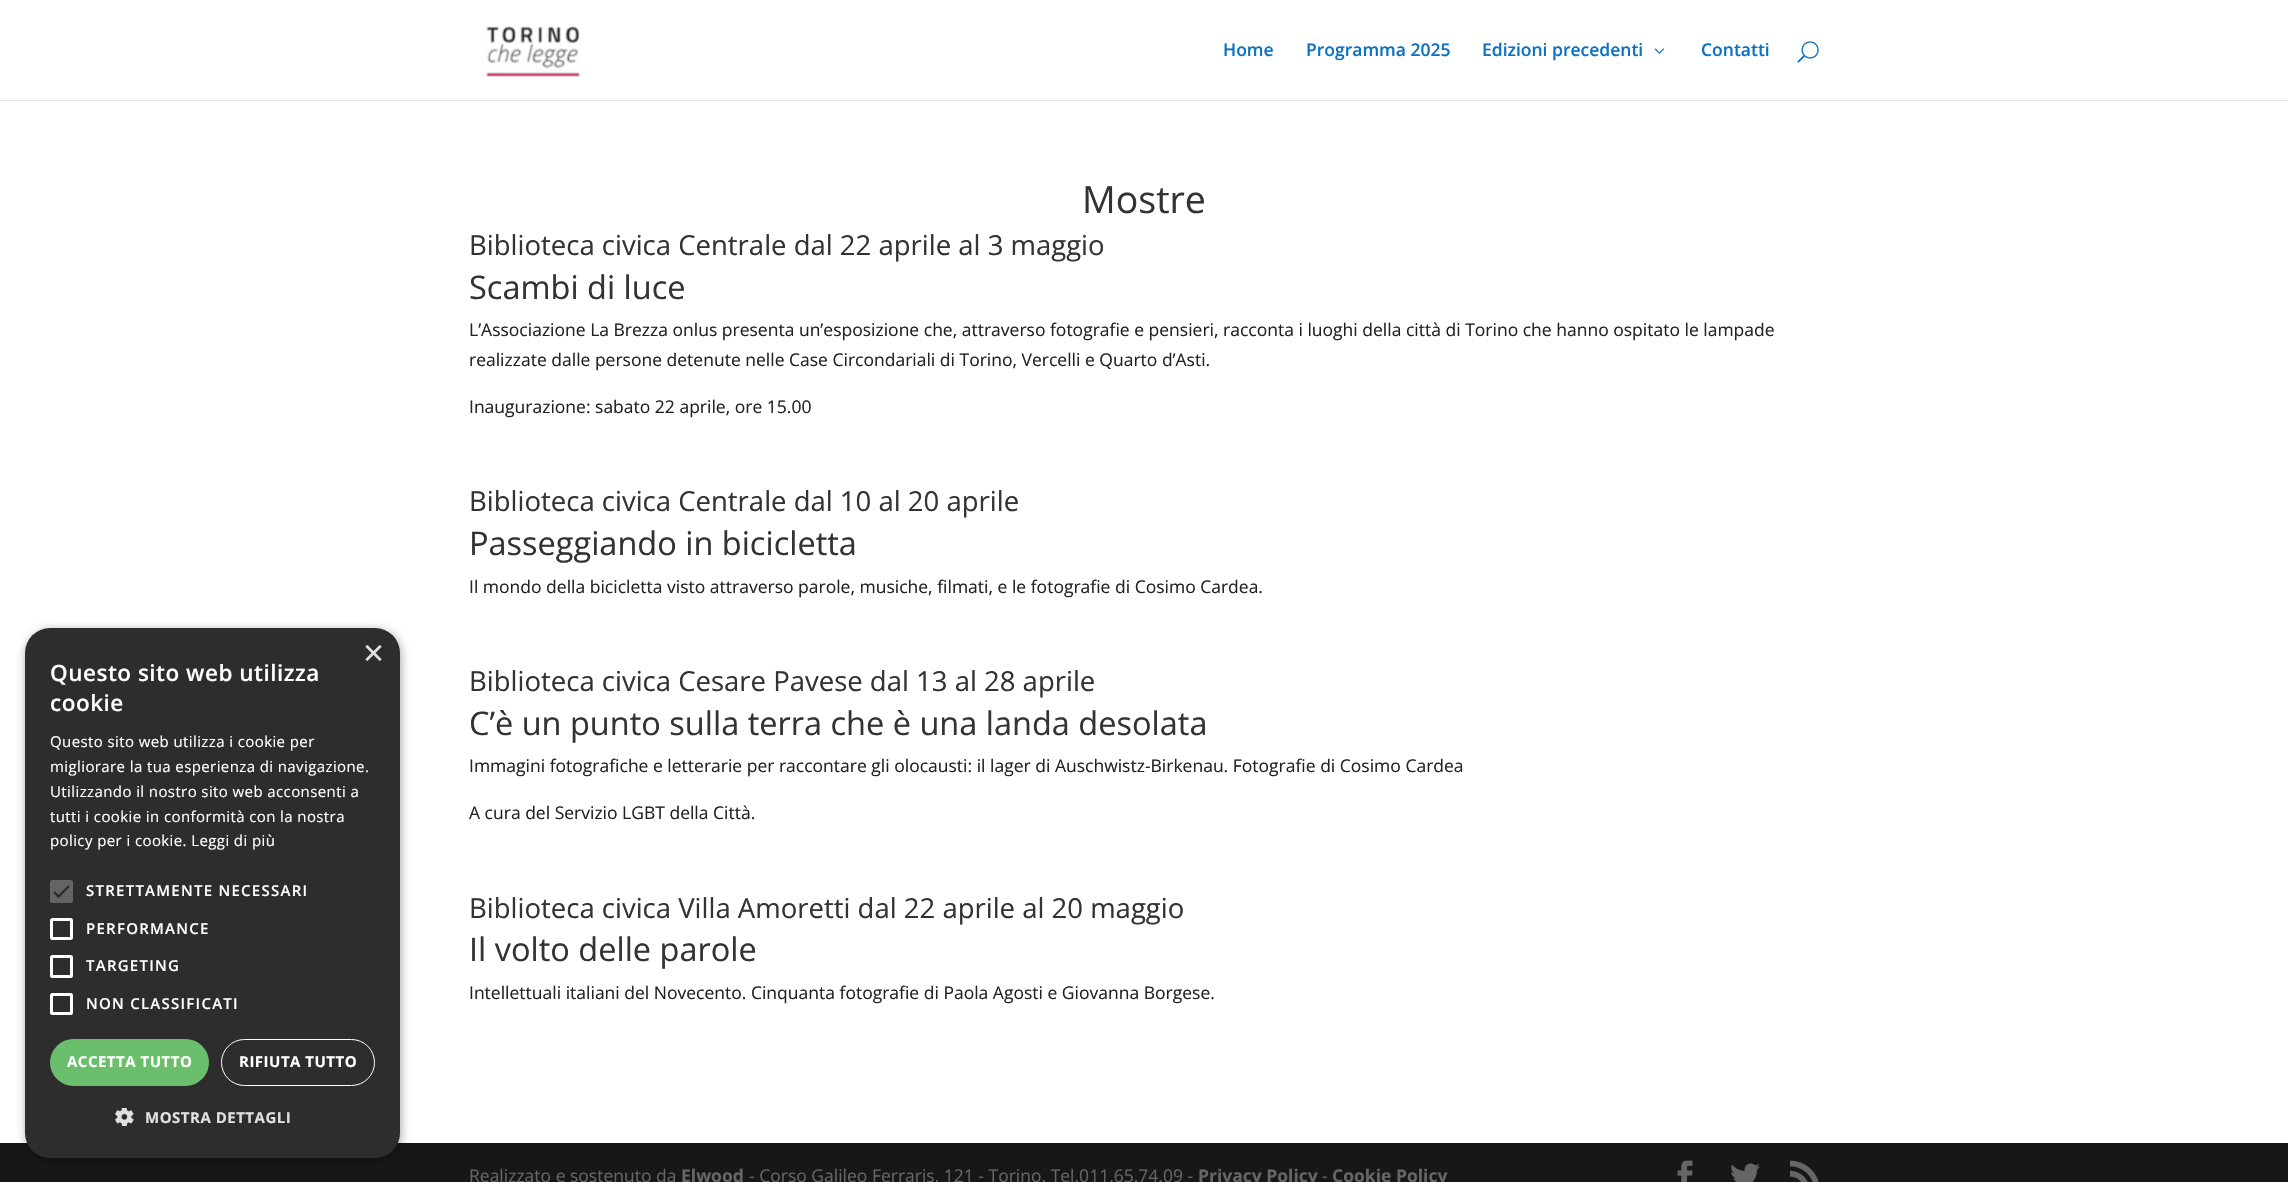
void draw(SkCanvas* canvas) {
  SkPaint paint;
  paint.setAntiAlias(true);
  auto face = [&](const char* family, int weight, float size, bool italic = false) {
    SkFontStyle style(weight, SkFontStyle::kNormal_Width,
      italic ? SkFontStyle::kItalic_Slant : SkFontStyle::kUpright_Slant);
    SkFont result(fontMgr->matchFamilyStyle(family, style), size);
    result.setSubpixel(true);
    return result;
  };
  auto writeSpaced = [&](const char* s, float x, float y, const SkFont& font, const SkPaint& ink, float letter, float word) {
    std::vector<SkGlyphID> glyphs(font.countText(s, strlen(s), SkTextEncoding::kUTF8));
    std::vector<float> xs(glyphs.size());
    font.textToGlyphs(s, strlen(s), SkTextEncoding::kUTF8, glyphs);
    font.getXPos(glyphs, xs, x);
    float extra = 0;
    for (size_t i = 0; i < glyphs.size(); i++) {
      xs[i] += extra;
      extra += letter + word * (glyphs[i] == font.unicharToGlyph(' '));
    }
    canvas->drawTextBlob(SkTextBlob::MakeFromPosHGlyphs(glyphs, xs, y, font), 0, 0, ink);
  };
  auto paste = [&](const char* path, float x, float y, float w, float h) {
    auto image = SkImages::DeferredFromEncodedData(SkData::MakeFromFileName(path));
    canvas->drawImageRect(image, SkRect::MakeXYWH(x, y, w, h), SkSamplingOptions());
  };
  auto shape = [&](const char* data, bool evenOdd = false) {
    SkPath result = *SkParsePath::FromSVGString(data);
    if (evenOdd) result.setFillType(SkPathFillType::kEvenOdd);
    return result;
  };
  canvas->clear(0xffffffff);
  paint.setColor(0xff171717);
  canvas->drawRect(SkRect::MakeXYWH(0, 1143, 2288, 39), paint);
  paint.setColor(0x59000000);
  paint.setMaskFilter(SkMaskFilter::MakeBlur(kNormal_SkBlurStyle, 5));
  canvas->drawRoundRect(SkRect::MakeXYWH(26, 630, 375, 530), 25, 25, paint);
  paint.setMaskFilter(nullptr);
  paint.setColor(0xff2d2d2d);
  canvas->drawRoundRect(SkRect::MakeXYWH(25, 628, 375, 530), 25, 25, paint);
  paint.setColor(0xff646464);
  canvas->drawRoundRect(SkRect::MakeXYWH(50, 880, 23, 23), 2.5f, 2.5f, paint);
  paint.setStroke(true);
  paint.setStrokeWidth(2.3f);
  paint.setColor(0xff2d2d2d);
  canvas->drawPath(shape("M54 892L58.5 896.5L69 886"), paint);
  paint.setStrokeWidth(3);
  paint.setColor(0xffffffff);
  canvas->drawRoundRect(SkRect::MakeXYWH(51.5f, 919.5f, 20, 19), 1, 1, paint);
  canvas->drawRoundRect(SkRect::MakeXYWH(51.5f, 956.5f, 20, 20), 1, 1, paint);
  canvas->drawRoundRect(SkRect::MakeXYWH(51.5f, 994.5f, 20, 19), 1, 1, paint);
  paint.setStroke(false);
  paint.setColor(0xff6bbe6b);
  canvas->drawRoundRect(SkRect::MakeXYWH(50, 1039, 159, 47), 23.5f, 23.5f, paint);
  paint.setStroke(true);
  paint.setStrokeWidth(1);
  paint.setColor(0xffffffff);
  canvas->drawRoundRect(SkRect::MakeXYWH(221.5f, 1039.5f, 153, 46), 23, 23, paint);
  paste("img/1.png", 115, 1108, 19, 18);
  paint.setStroke(false);
  paint.setColor(0xffe6e6e6);
  canvas->drawPath(shape("M0 100V101H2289V1V100Z"), paint);
  paste("img/2.png", 484, 25, 97, 52);
  paste("img/3.png", 1654, 48, 10, 6);
  paste("img/4.png", 1797, 41, 22, 22);
  paste("img/5.png", 1677, 1160, 16, 22);
  paste("img/6.png", 1731, 1163, 29, 19);
  paste("img/7.png", 1790, 1160, 29, 22);
  auto f0 = face("Liberation Sans", 400, 36);
  paint.setColor(0xffe0e0e0);
  canvas->drawString("×", 363, 665, f0, paint);
  auto f1 = face("Open Sans", 600, 22.5f);
  paint.setColor(0xffffffff);
  writeSpaced("Questo sito web utilizza", 50, 681, f1, paint, 0.5f, 0);
  writeSpaced("cookie", 50, 711, f1, paint, 0.5f, 0);
  auto f2 = face("Open Sans", 400, 15);
  {
    const struct { const char* s; float x, y; } items[] = {
      {"Questo sito web utilizza i cookie per", 50, 747},
      {"migliorare la tua esperienza di navigazione.", 50, 772},
      {"Utilizzando il nostro sito web acconsenti a", 50, 797},
      {"tutti i cookie in conformità con la nostra", 50, 822},
      {"policy per i cookie. Leggi di più", 50, 846},
    };
    for (auto [s, x, y] : items) {
      writeSpaced(s, x, y, f2, paint, 0.4f, 0);
    }
  }
  auto f3 = face("Open Sans", 600, 15);
  {
    const struct { const char* s; float x, y; } items[] = {
      {"STRETTAMENTE NECESSARI", 86, 896},
      {"PERFORMANCE", 86, 934},
      {"TARGETING", 86, 971},
      {"NON CLASSIFICATI", 86, 1009},
    };
    for (auto [s, x, y] : items) {
      writeSpaced(s, x, y, f3, paint, 1.25f, 0);
    }
  }
  auto f4 = face("Open Sans", 700, 15);
  writeSpaced("ACCETTA TUTTO", 67, 1067, f4, paint, 0.5f, 0);
  writeSpaced("RIFIUTA TUTTO", 239, 1067, f4, paint, 0.5f, 0);
  paint.setColor(0xffe0e0e0);
  writeSpaced("MOSTRA DETTAGLI", 145, 1123, f4, paint, 0.5f, 0);
  auto f5 = face("Open Sans", 600, 17.5f);
  paint.setColor(0xff0c71c3);
  {
    const struct { const char* s; float x, y; } items[] = {
      {"Home", 1223, 56},
      {"Programma 2025", 1306, 56},
      {"Edizioni precedenti", 1482, 56},
      {"Contatti", 1701, 56},
    };
    for (auto [s, x, y] : items) {
      canvas->drawString(s, x, y, f5, paint);
    }
  }
  auto f6 = face("Open Sans", 400, 37.5f);
  paint.setColor(0xff333333);
  canvas->drawString("Mostre", 1082, 213, f6, paint);
  auto f7 = face("Open Sans", 400, 27.5f);
  canvas->drawString("Biblioteca civica Centrale dal 22 aprile al 3 maggio", 469, 255, f7, paint);
  auto f8 = face("Open Sans", 400, 32.5f);
  canvas->drawString("Scambi di luce", 469, 299, f8, paint);
  auto f9 = face("Open Sans", 400, 17.5f);
  paint.setColor(0xff222222);
  {
    const struct { const char* s; float x, y; } items[] = {
      {"L’Associazione La Brezza onlus presenta un’esposizione che, attraverso fotografie e pensieri, racconta i luoghi della città di Torino che hanno ospitato le lampade", 469, 336},
      {"realizzate dalle persone detenute nelle Case Circondariali di Torino, Vercelli e Quarto d’Asti.", 469, 366},
      {"Inaugurazione: sabato 22 aprile, ore 15.00", 469, 413},
    };
    for (auto [s, x, y] : items) {
      canvas->drawString(s, x, y, f9, paint);
    }
  }
  paint.setColor(0xff333333);
  canvas->drawString("Biblioteca civica Centrale dal 10 al 20 aprile", 469, 511, f7, paint);
  canvas->drawString("Passeggiando in bicicletta", 469, 555, f8, paint);
  paint.setColor(0xff222222);
  canvas->drawString("Il mondo della bicicletta visto attraverso parole, musiche, filmati, e le fotografie di Cosimo Cardea.", 469, 593, f9, paint);
  paint.setColor(0xff333333);
  canvas->drawString("Biblioteca civica Cesare Pavese dal 13 al 28 aprile", 469, 691, f7, paint);
  canvas->drawString("C’è un punto sulla terra che è una landa desolata", 469, 735, f8, paint);
  paint.setColor(0xff222222);
  canvas->drawString("Immagini fotografiche e letterarie per raccontare gli olocausti: il lager di Auschwistz-Birkenau. Fotografie di Cosimo Cardea", 469, 772, f9, paint);
  canvas->drawString("A cura del Servizio LGBT della Città.", 469, 819, f9, paint);
  paint.setColor(0xff333333);
  canvas->drawString("Biblioteca civica Villa Amoretti dal 22 aprile al 20 maggio", 469, 918, f7, paint);
  canvas->drawString("Il volto delle parole", 469, 961, f8, paint);
  paint.setColor(0xff222222);
  canvas->drawString("Intellettuali italiani del Novecento. Cinquanta fotografie di Paola Agosti e Giovanna Borgese.", 469, 999, f9, paint);
  paint.setColor(0xff666666);
  canvas->drawString("Realizzato e sostenuto da", 469, 1182, f9, paint);
  auto f10 = face("Open Sans", 700, 17.5f);
  canvas->drawString("Elwood", 681, 1182, f10, paint);
  canvas->drawString("- Corso Galileo Ferraris, 121 - Torino. Tel.011.65.74.09 -", 749, 1182, f9, paint);
  canvas->drawString("Privacy Policy", 1198, 1182, f10, paint);
  canvas->drawString("-", 1322, 1182, f9, paint);
  canvas->drawString("Cookie Policy", 1332, 1182, f10, paint);
}
